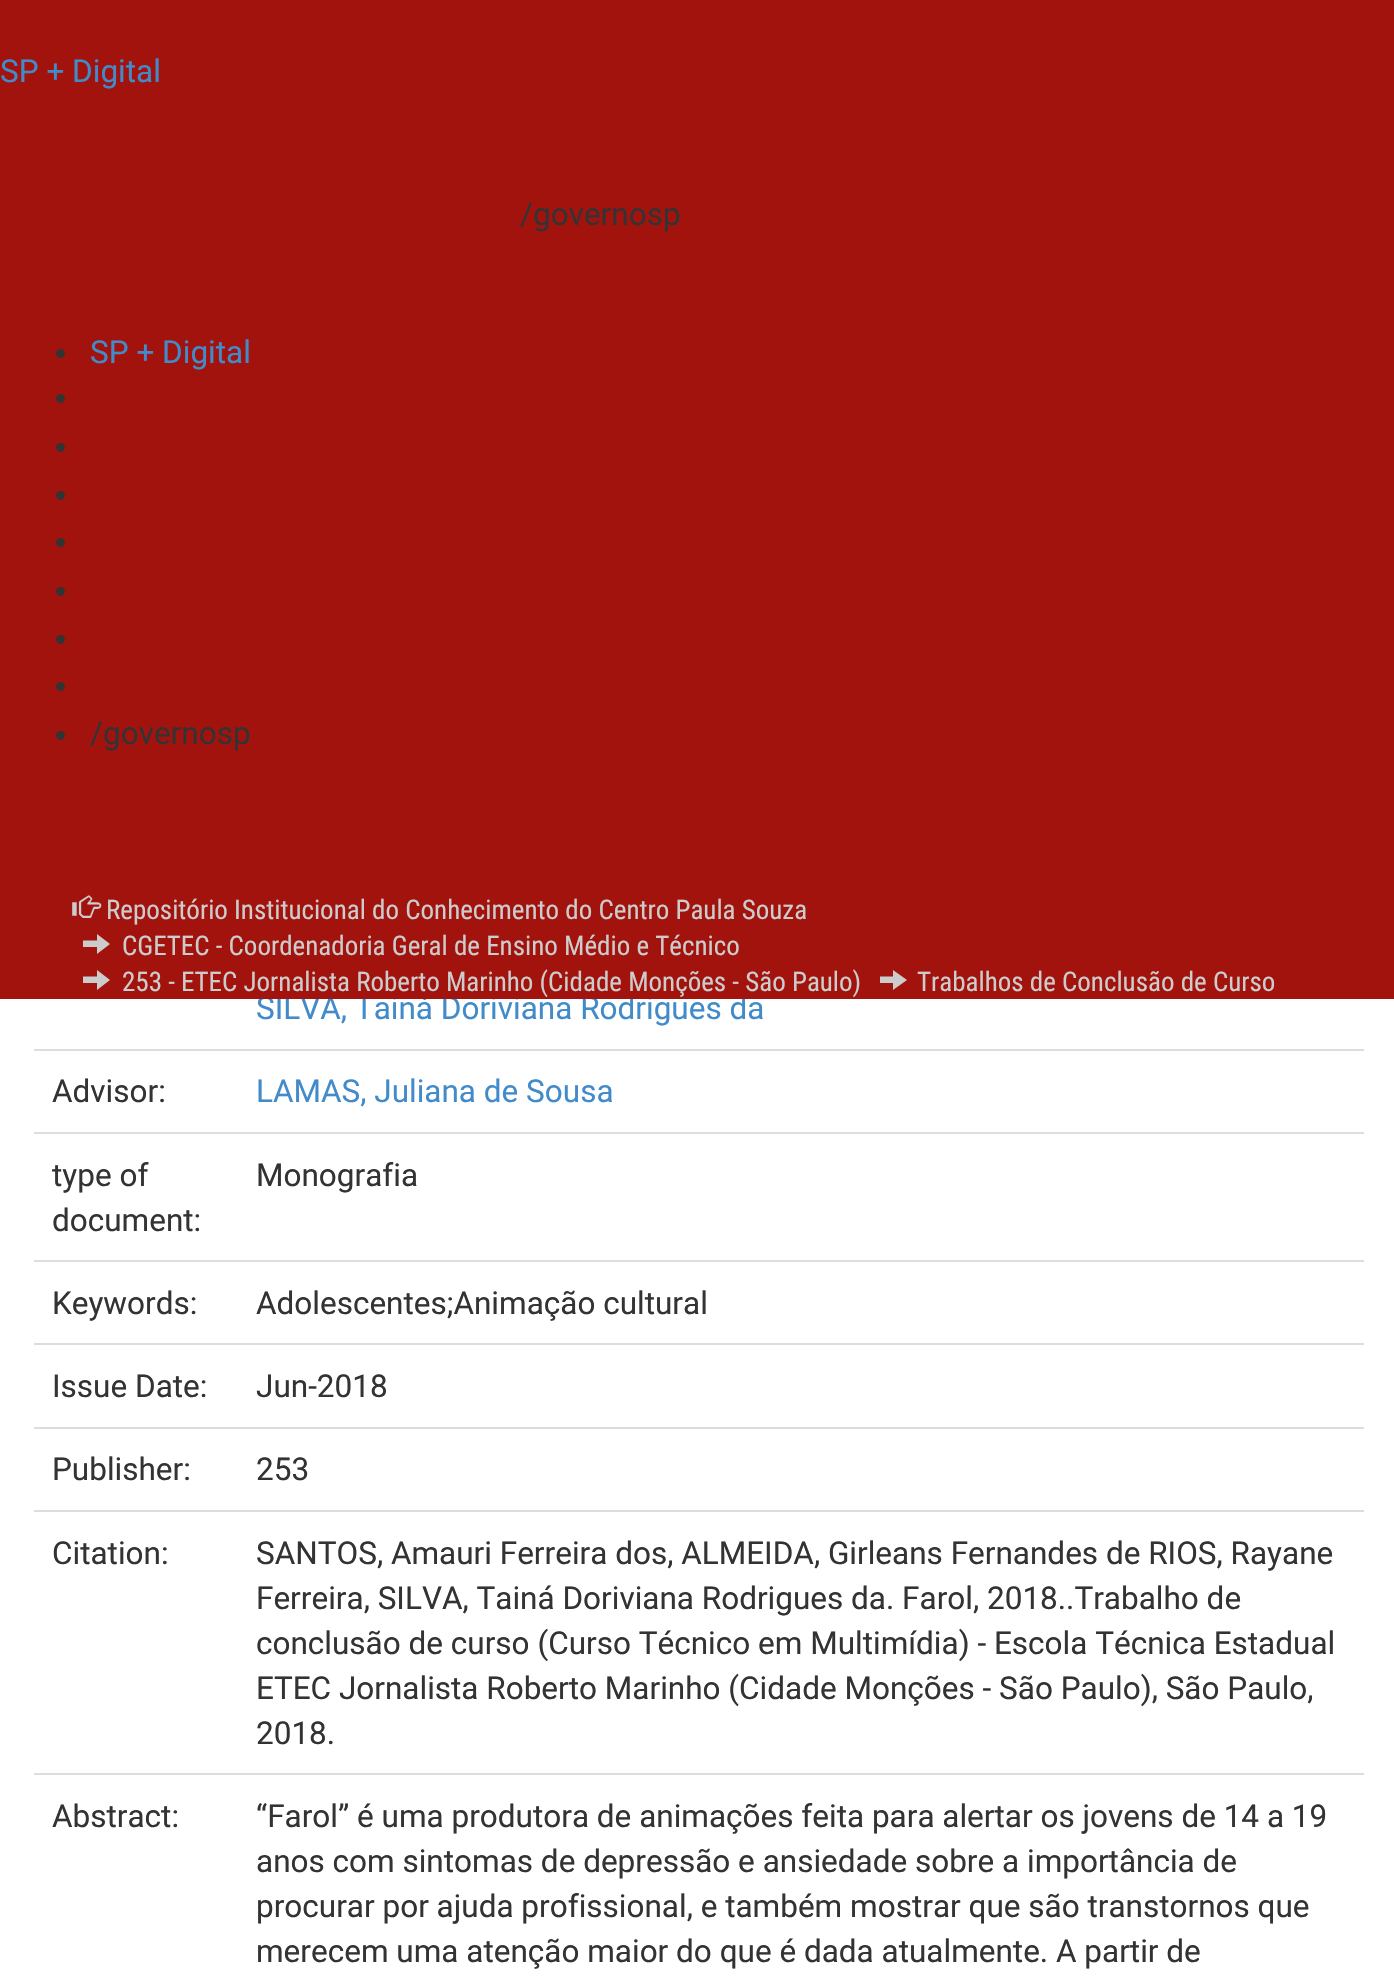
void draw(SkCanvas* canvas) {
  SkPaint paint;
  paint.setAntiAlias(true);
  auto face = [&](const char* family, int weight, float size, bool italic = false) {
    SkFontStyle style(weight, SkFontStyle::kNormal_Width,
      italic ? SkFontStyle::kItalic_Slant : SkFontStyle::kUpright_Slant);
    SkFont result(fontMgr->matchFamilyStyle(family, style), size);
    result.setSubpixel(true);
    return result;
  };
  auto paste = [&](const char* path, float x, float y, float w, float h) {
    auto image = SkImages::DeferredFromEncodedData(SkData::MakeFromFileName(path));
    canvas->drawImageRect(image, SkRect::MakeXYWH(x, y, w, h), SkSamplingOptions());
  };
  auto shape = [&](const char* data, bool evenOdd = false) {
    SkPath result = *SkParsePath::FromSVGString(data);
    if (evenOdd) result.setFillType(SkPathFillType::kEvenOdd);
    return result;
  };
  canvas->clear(0xffffffff);
  {
    const struct { float x, y, w, h; SkColor color; } items[] = {
      {34, 1049, 1330, 2, 0xffdddddd},
      {34, 1132, 1330, 2, 0xffdddddd},
      {34, 1260, 1330, 2, 0xffdddddd},
      {34, 1343, 1330, 2, 0xffdddddd},
      {34, 1427, 1330, 2, 0xffdddddd},
      {34, 1510, 1330, 2, 0xffdddddd},
      {34, 1773, 1330, 2, 0xffdddddd},
    };
    for (auto [x, y, w, h, color] : items) {
      paint.setColor(color);
      canvas->drawRect(SkRect::MakeXYWH(x, y, w, h), paint);
    }
  }
  auto f0 = face("Roboto", 400, 31.5f);
  paint.setColor(0xff428bca);
  canvas->drawString("SILVA, Tainá Doriviana Rodrigues da", 256, 1019, f0, paint);
  paint.setColor(0xffa3130d);
  canvas->drawRect(SkRect::MakeXYWH(0, 0, 1394, 999), paint);
  auto f1 = face("Roboto Condensed", 400, 27);
  paint.setColor(0xffcccccc);
  canvas->drawString("Trabalhos de Conclusão de Curso", 917, 991, f1, paint);
  canvas->drawPath(shape("M893 983H880V976.5H893V970L907 980L893 990Z"), paint);
  canvas->drawString("253 - ETEC Jornalista Roberto Marinho (Cidade Monções - São Paulo)", 122, 991, f1, paint);
  canvas->drawPath(shape("M97 983H83V976.5H97V970L110 980L97 990Z"), paint);
  canvas->drawString("CGETEC - Coordenadoria Geral de Ensino Médio e Técnico", 122, 955, f1, paint);
  canvas->drawPath(shape("M97 947H83V940.5H97V934L110 944L97 954Z"), paint);
  canvas->drawString("Repositório Institucional do Conhecimento do Centro Paula Souza", 106, 919, f1, paint);
  paste("img/1.png", 72, 895, 30, 23);
  paint.setColor(0xff333333);
  canvas->drawString("/governosp", 90, 744, f0, paint);
  canvas->drawCircle(60.5f, 735.5f, 4.5f, paint);
  canvas->drawCircle(60.5f, 686.5f, 4.5f, paint);
  canvas->drawCircle(60.5f, 639.5f, 4.5f, paint);
  canvas->drawCircle(60.5f, 591.5f, 4.5f, paint);
  canvas->drawCircle(60.5f, 542.5f, 4.5f, paint);
  canvas->drawCircle(60.5f, 495.5f, 4.5f, paint);
  canvas->drawCircle(60.5f, 447.5f, 4.5f, paint);
  canvas->drawCircle(60.5f, 398.5f, 4.5f, paint);
  paint.setColor(0xff428bca);
  canvas->drawString("SP + Digital", 90, 363, f0, paint);
  paint.setColor(0xff333333);
  canvas->drawCircle(60.5f, 353.5f, 4.5f, paint);
  canvas->drawString("/governosp", 520, 225, f0, paint);
  paint.setColor(0xff428bca);
  canvas->drawString("SP + Digital", 0, 82, f0, paint);
  paint.setColor(0xff333333);
  canvas->drawString("Advisor:", 52, 1102, f0, paint);
  paint.setColor(0xff428bca);
  canvas->drawString("LAMAS, Juliana de Sousa", 256, 1102, f0, paint);
  paint.setColor(0xff333333);
  {
    const struct { const char* s; float x, y; } items[] = {
      {"type of", 52, 1186},
      {"document:", 52, 1231},
      {"Monografia", 256, 1186},
      {"Keywords:", 52, 1314},
      {"Adolescentes;Animação cultural", 256, 1314},
      {"Issue Date:", 52, 1397},
      {"Jun-2018", 256, 1397},
      {"Publisher:", 52, 1480},
      {"253", 256, 1480},
      {"Citation:", 52, 1564},
      {"SANTOS, Amauri Ferreira dos, ALMEIDA, Girleans Fernandes de RIOS, Rayane", 256, 1564},
      {"Ferreira, SILVA, Tainá Doriviana Rodrigues da. Farol, 2018..Trabalho de", 256, 1609},
      {"conclusão de curso (Curso Técnico em Multimídia) - Escola Técnica Estadual", 256, 1654},
      {"ETEC Jornalista Roberto Marinho (Cidade Monções - São Paulo), São Paulo,", 256, 1699},
      {"2018.", 256, 1744},
      {"Abstract:", 52, 1827},
      {"“Farol” é uma produtora de animações feita para alertar os jovens de 14 a 19", 256, 1827},
      {"anos com sintomas de depressão e ansiedade sobre a importância de", 256, 1872},
      {"procurar por ajuda profissional, e também mostrar que são transtornos que", 256, 1917},
      {"merecem uma atenção maior do que é dada atualmente. A partir de", 256, 1962},
    };
    for (auto [s, x, y] : items) {
      canvas->drawString(s, x, y, f0, paint);
    }
  }
}
